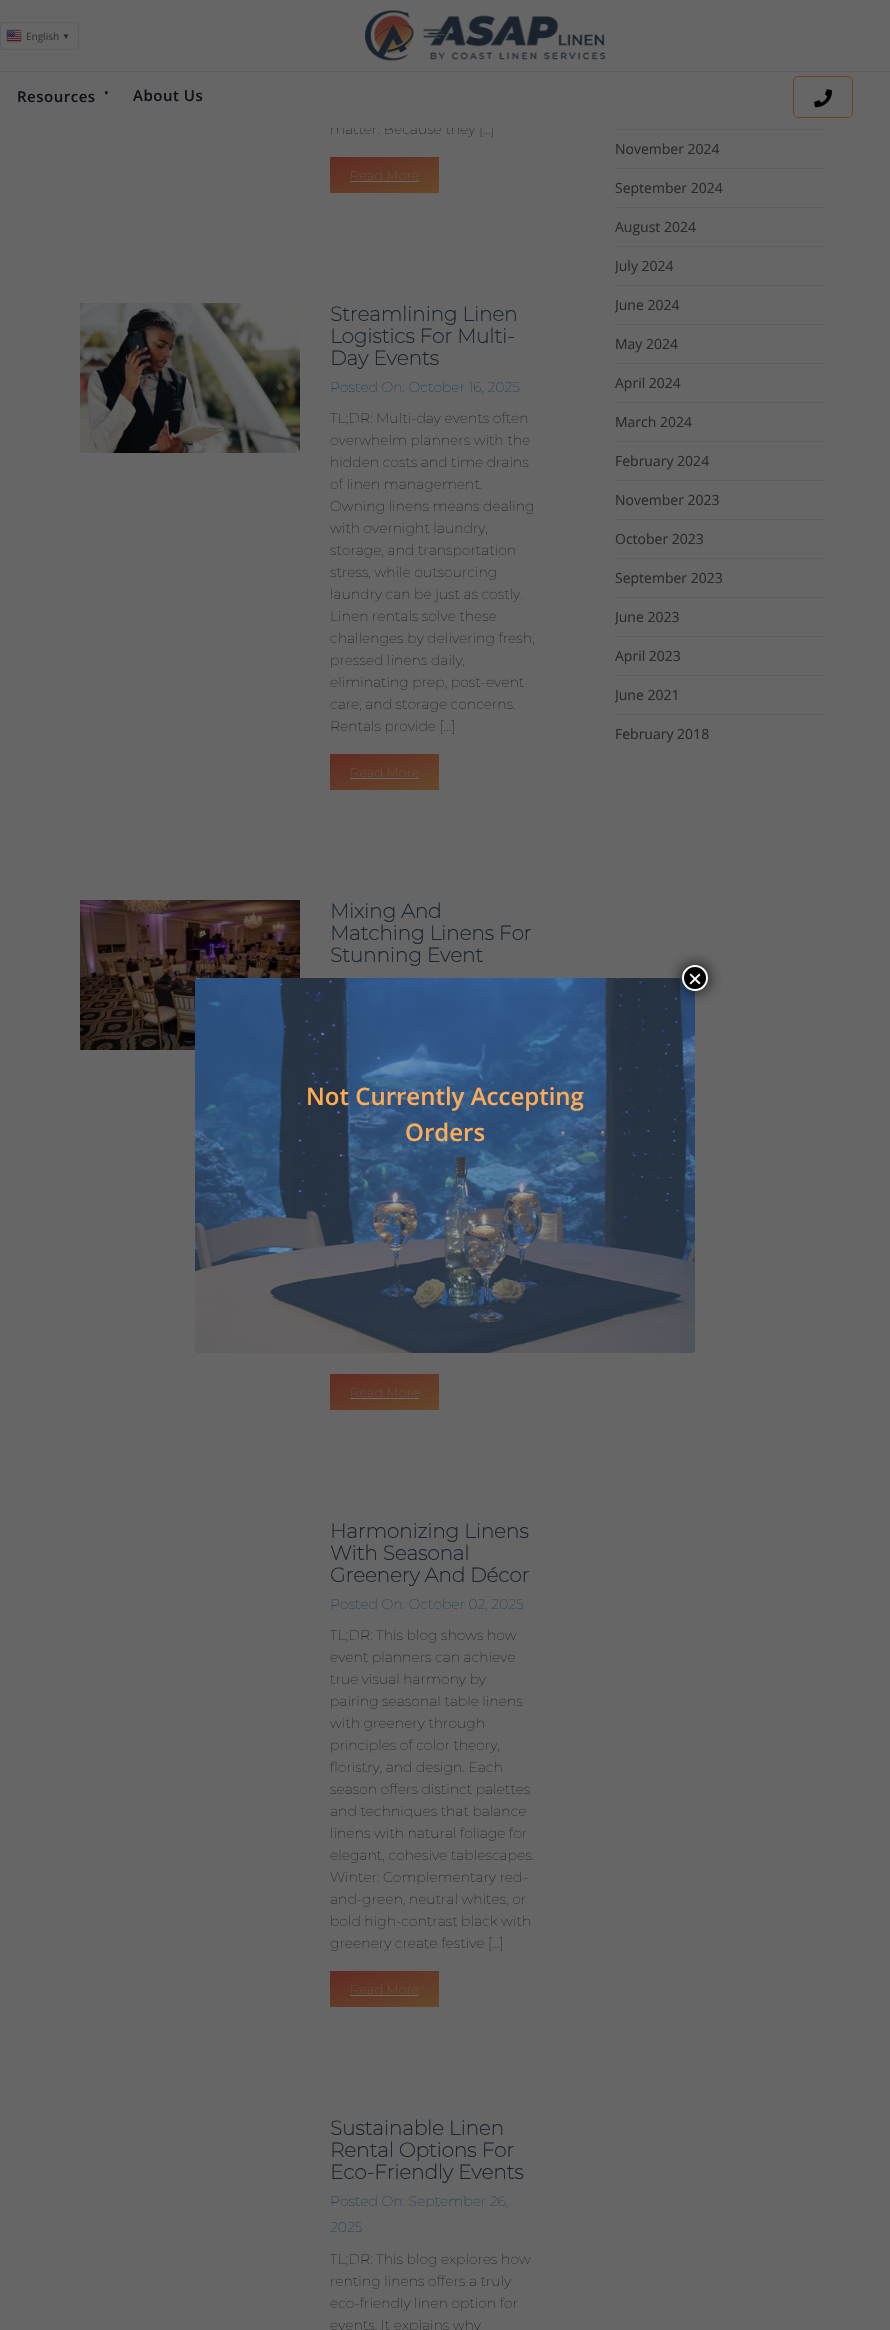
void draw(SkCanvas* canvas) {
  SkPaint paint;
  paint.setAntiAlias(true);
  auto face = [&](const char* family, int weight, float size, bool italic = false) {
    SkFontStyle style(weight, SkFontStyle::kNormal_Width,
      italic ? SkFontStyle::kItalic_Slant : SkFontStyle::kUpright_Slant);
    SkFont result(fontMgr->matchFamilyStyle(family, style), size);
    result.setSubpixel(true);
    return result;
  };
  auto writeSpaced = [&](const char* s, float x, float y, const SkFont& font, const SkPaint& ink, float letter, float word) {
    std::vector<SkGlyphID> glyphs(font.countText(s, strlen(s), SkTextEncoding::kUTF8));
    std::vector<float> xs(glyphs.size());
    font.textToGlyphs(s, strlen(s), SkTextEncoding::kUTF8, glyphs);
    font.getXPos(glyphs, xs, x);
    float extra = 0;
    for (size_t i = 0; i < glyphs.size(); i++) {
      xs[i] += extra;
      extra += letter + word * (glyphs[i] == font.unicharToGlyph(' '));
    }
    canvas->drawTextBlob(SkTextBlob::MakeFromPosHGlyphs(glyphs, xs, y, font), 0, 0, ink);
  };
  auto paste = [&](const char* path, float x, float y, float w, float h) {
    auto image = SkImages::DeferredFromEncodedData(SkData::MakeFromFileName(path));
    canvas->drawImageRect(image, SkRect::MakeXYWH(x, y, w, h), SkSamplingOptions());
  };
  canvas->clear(0xff666666);
  paint.setColor(0xff5c5c5c);
  canvas->drawRect(SkRect::MakeXYWH(0, 71, 890, 1), paint);
  paint.setStroke(true);
  paint.setStrokeWidth(1);
  canvas->drawRoundRect(SkRect::MakeXYWH(0.5f, 22.5f, 78, 27), 3.5f, 3.5f, paint);
  paste("img/1.png", 6, 29, 16, 14);
  paste("img/2.png", 365, 10, 240, 51);
  paint.setColor(0xff654422);
  canvas->drawRoundRect(SkRect::MakeXYWH(793.5f, 76.5f, 59, 41), 4.5f, 4.5f, paint);
  paste("img/3.png", 814, 89, 18, 19);
  paint.setStroke(false);
  {
    const SkColor colors[] = {0xff612a24, 0xff64482a};
    const float stops[] = {0, 1};
    const SkPoint ends[] = {{374, 143}, {395, 207}};
    paint.setShader(SkGradientShader::MakeLinear(ends, colors, stops, 2, SkTileMode::kClamp));
    paint.setAlpha(255);
  }
  canvas->drawRect(SkRect::MakeXYWH(330, 157, 109, 36), paint);
  paint.setShader(nullptr);
  paint.setColor(0xff666666);
  canvas->drawRect(SkRect::MakeXYWH(350, 181, 69, 1), paint);
  paste("img/4.png", 80, 303, 220, 150);
  {
    const SkColor colors[] = {0xff612a24, 0xff64482a};
    const float stops[] = {0, 1};
    const SkPoint ends[] = {{374, 740}, {395, 804}};
    paint.setShader(SkGradientShader::MakeLinear(ends, colors, stops, 2, SkTileMode::kClamp));
    paint.setAlpha(255);
  }
  canvas->drawRect(SkRect::MakeXYWH(330, 754, 109, 36), paint);
  paint.setShader(nullptr);
  paint.setColor(0xff666666);
  canvas->drawRect(SkRect::MakeXYWH(350, 778, 69, 1), paint);
  paste("img/5.png", 80, 900, 220, 150);
  {
    const SkColor colors[] = {0xff612a24, 0xff64482a};
    const float stops[] = {0, 1};
    const SkPoint ends[] = {{374, 1360}, {395, 1424}};
    paint.setShader(SkGradientShader::MakeLinear(ends, colors, stops, 2, SkTileMode::kClamp));
    paint.setAlpha(255);
  }
  canvas->drawRect(SkRect::MakeXYWH(330, 1374, 109, 36), paint);
  paint.setShader(nullptr);
  paint.setColor(0xff666666);
  canvas->drawRect(SkRect::MakeXYWH(350, 1398, 69, 1), paint);
  {
    const SkColor colors[] = {0xff612a24, 0xff64482a};
    const float stops[] = {0, 1};
    const SkPoint ends[] = {{374, 1957}, {395, 2021}};
    paint.setShader(SkGradientShader::MakeLinear(ends, colors, stops, 2, SkTileMode::kClamp));
    paint.setAlpha(255);
  }
  canvas->drawRect(SkRect::MakeXYWH(330, 1971, 109, 36), paint);
  paint.setShader(nullptr);
  {
    const struct { float x, y, w, h; SkColor color; } items[] = {
      {350, 1995, 69, 1, 0xff666666},
      {615, 129, 210, 1, 0xff5c5c5c},
      {615, 168, 210, 1, 0xff5c5c5c},
      {615, 207, 210, 1, 0xff5c5c5c},
      {615, 246, 210, 1, 0xff5c5c5c},
      {615, 285, 210, 1, 0xff5c5c5c},
      {615, 324, 210, 1, 0xff5c5c5c},
      {615, 363, 210, 1, 0xff5c5c5c},
      {615, 402, 210, 1, 0xff5c5c5c},
      {615, 441, 210, 1, 0xff5c5c5c},
      {615, 480, 210, 1, 0xff5c5c5c},
      {615, 519, 210, 1, 0xff5c5c5c},
      {615, 558, 210, 1, 0xff5c5c5c},
      {615, 597, 210, 1, 0xff5c5c5c},
      {615, 636, 210, 1, 0xff5c5c5c},
      {615, 675, 210, 1, 0xff5c5c5c},
      {615, 714, 210, 1, 0xff5c5c5c},
    };
    for (auto [x, y, w, h, color] : items) {
      paint.setColor(color);
      canvas->drawRect(SkRect::MakeXYWH(x, y, w, h), paint);
    }
  }
  paste("img/6.png", 195, 978, 500, 375);
  paint.setColor(0xbf020202);
  paint.setMaskFilter(SkMaskFilter::MakeBlur(kNormal_SkBlurStyle, 7.5f));
  canvas->drawRoundRect(SkRect::MakeXYWH(681, 964, 28, 28), 14, 14, paint);
  paint.setMaskFilter(nullptr);
  paint.setColor(0xff000000);
  canvas->drawCircle(695, 978, 12, paint);
  paint.setStroke(true);
  paint.setStrokeWidth(2);
  paint.setColor(0xffffffff);
  canvas->drawCircle(695, 978, 12, paint);
  auto f0 = face("Open Sans", 400, 10);
  paint.setStroke(false);
  paint.setColor(0xff313131);
  canvas->drawString("English", 26, 40, f0, paint);
  auto f1 = face("Liberation Sans", 700, 8);
  paint.setColor(0xff292929);
  canvas->drawString("▼", 62, 39, f1, paint);
  auto f2 = face("Open Sans", 600, 15);
  paint.setColor(0xff0f1117);
  writeSpaced("Resources", 17, 102, f2, paint, 0.5f, 0);
  auto f3 = face("Liberation Sans", 700, 20);
  paint.setColor(0xff000000);
  writeSpaced("ˑ", 103, 102, f3, paint, 0.5f, 0);
  paint.setColor(0xff0f1117);
  writeSpaced("About Us", 133, 101, f2, paint, 0.5f, 0);
  auto f4 = face("Montserrat", 100, 14);
  paint.setColor(0xff0a0a0a);
  canvas->drawString("matter: Because they […]", 330, 134, f4, paint);
  paint.setColor(0xff666666);
  canvas->drawRect(SkRect::MakeXYWH(331, 123, 162, 5), paint);
  auto f5 = face("Montserrat", 100, 13);
  canvas->drawString("Read More", 350, 180, f5, paint);
  auto f6 = face("Montserrat", 700, 20);
  paint.setColor(0xff19242e);
  {
    const struct { const char* s; float x, y; } items[] = {
      {"Streamlining Linen", 330, 321},
      {"Logistics For Multi-", 330, 343},
      {"Day Events", 330, 365},
    };
    for (auto [s, x, y] : items) {
      canvas->drawString(s, x, y, f6, paint);
    }
  }
  paint.setColor(0xff002d4b);
  canvas->drawString("Posted On: October 16, 2025", 330, 392, f4, paint);
  paint.setColor(0xff0a0a0a);
  {
    const struct { const char* s; float x, y; } items[] = {
      {"TL;DR: Multi-day events often", 330, 423},
      {"overwhelm planners with the", 330, 445},
      {"hidden costs and time drains", 330, 467},
      {"of linen management.", 330, 489},
      {"Owning linens means dealing", 330, 511},
      {"with overnight laundry,", 330, 533},
      {"storage, and transportation", 330, 555},
      {"stress, while outsourcing", 330, 577},
      {"laundry can be just as costly.", 330, 599},
      {"Linen rentals solve these", 330, 621},
      {"challenges by delivering fresh,", 330, 643},
      {"pressed linens daily,", 330, 665},
      {"eliminating prep, post-event", 330, 687},
      {"care, and storage concerns.", 330, 709},
      {"Rentals provide […]", 330, 731},
    };
    for (auto [s, x, y] : items) {
      canvas->drawString(s, x, y, f4, paint);
    }
  }
  paint.setColor(0xff666666);
  canvas->drawString("Read More", 350, 777, f5, paint);
  paint.setColor(0xff19242e);
  {
    const struct { const char* s; float x, y; } items[] = {
      {"Mixing And", 330, 918},
      {"Matching Linens For", 330, 940},
      {"Stunning Event", 330, 962},
    };
    for (auto [s, x, y] : items) {
      canvas->drawString(s, x, y, f6, paint);
    }
  }
  paint.setColor(0xff666666);
  canvas->drawString("Read More", 350, 1397, f5, paint);
  paint.setColor(0xff19242e);
  {
    const struct { const char* s; float x, y; } items[] = {
      {"Harmonizing Linens", 330, 1538},
      {"With Seasonal", 330, 1560},
      {"Greenery And Décor", 330, 1582},
    };
    for (auto [s, x, y] : items) {
      canvas->drawString(s, x, y, f6, paint);
    }
  }
  paint.setColor(0xff002d4b);
  canvas->drawString("Posted On: October 02, 2025", 330, 1609, f4, paint);
  paint.setColor(0xff0a0a0a);
  {
    const struct { const char* s; float x, y; } items[] = {
      {"TL;DR: This blog shows how", 330, 1640},
      {"event planners can achieve", 330, 1662},
      {"true visual harmony by", 330, 1684},
      {"pairing seasonal table linens", 330, 1706},
      {"with greenery through", 330, 1728},
      {"principles of color theory,", 330, 1750},
      {"floristry, and design. Each", 330, 1772},
      {"season offers distinct palettes", 330, 1794},
      {"and techniques that balance", 330, 1816},
      {"linens with natural foliage for", 330, 1838},
      {"elegant, cohesive tablescapes.", 330, 1860},
      {"Winter: Complementary red-", 330, 1882},
      {"and-green, neutral whites, or", 330, 1904},
      {"bold high-contrast black with", 330, 1926},
      {"greenery create festive […]", 330, 1948},
    };
    for (auto [s, x, y] : items) {
      canvas->drawString(s, x, y, f4, paint);
    }
  }
  paint.setColor(0xff666666);
  canvas->drawString("Read More", 350, 1994, f5, paint);
  paint.setColor(0xff19242e);
  {
    const struct { const char* s; float x, y; } items[] = {
      {"Sustainable Linen", 330, 2135},
      {"Rental Options For", 330, 2157},
      {"Eco-Friendly Events", 330, 2179},
    };
    for (auto [s, x, y] : items) {
      canvas->drawString(s, x, y, f6, paint);
    }
  }
  paint.setColor(0xff002d4b);
  canvas->drawString("Posted On: September 26,", 330, 2206, f4, paint);
  canvas->drawString("2025", 330, 2232, f4, paint);
  paint.setColor(0xff0a0a0a);
  {
    const struct { const char* s; float x, y; } items[] = {
      {"TL;DR: This blog explores how", 330, 2264},
      {"renting linens offers a truly", 330, 2286},
      {"eco-friendly linen option for", 330, 2308},
      {"events. It explains why", 330, 2330},
    };
    for (auto [s, x, y] : items) {
      canvas->drawString(s, x, y, f4, paint);
    }
  }
  auto f7 = face("Open Sans", 400, 14);
  paint.setColor(0xff292929);
  {
    const struct { const char* s; float x, y; } items[] = {
      {"November 2024", 615, 154},
      {"September 2024", 615, 193},
      {"August 2024", 615, 232},
    };
    for (auto [s, x, y] : items) {
      canvas->drawString(s, x, y, f7, paint);
    }
  }
  canvas->save();
  canvas->clipRect(SkRect::MakeXYWH(615, 0, 210, 833));
  canvas->drawString("July 2024", 615, 271, f7, paint);
  canvas->drawString("June 2024", 615, 310, f7, paint);
  canvas->restore();
  {
    const struct { const char* s; float x, y; } items[] = {
      {"May 2024", 615, 349},
      {"April 2024", 615, 388},
      {"March 2024", 615, 427},
      {"February 2024", 615, 466},
      {"November 2023", 615, 505},
      {"October 2023", 615, 544},
      {"September 2023", 615, 583},
    };
    for (auto [s, x, y] : items) {
      canvas->drawString(s, x, y, f7, paint);
    }
  }
  canvas->save();
  canvas->clipRect(SkRect::MakeXYWH(615, 0, 210, 833));
  canvas->drawString("June 2023", 615, 622, f7, paint);
  canvas->restore();
  canvas->drawString("April 2023", 615, 661, f7, paint);
  canvas->save();
  canvas->clipRect(SkRect::MakeXYWH(615, 0, 210, 833));
  canvas->drawString("June 2021", 615, 700, f7, paint);
  canvas->restore();
  canvas->drawString("February 2018", 615, 739, f7, paint);
  auto f8 = face("Liberation Sans", 400, 24);
  paint.setColor(0xffffffff);
  canvas->drawString("×", 688, 987, f8, paint);
  auto f9 = face("Open Sans", 600, 24);
  paint.setColor(0xfffdab55);
  canvas->drawString("Not Currently Accepting", 306, 1105, f9, paint);
  canvas->drawString("Orders", 405, 1141, f9, paint);
}
